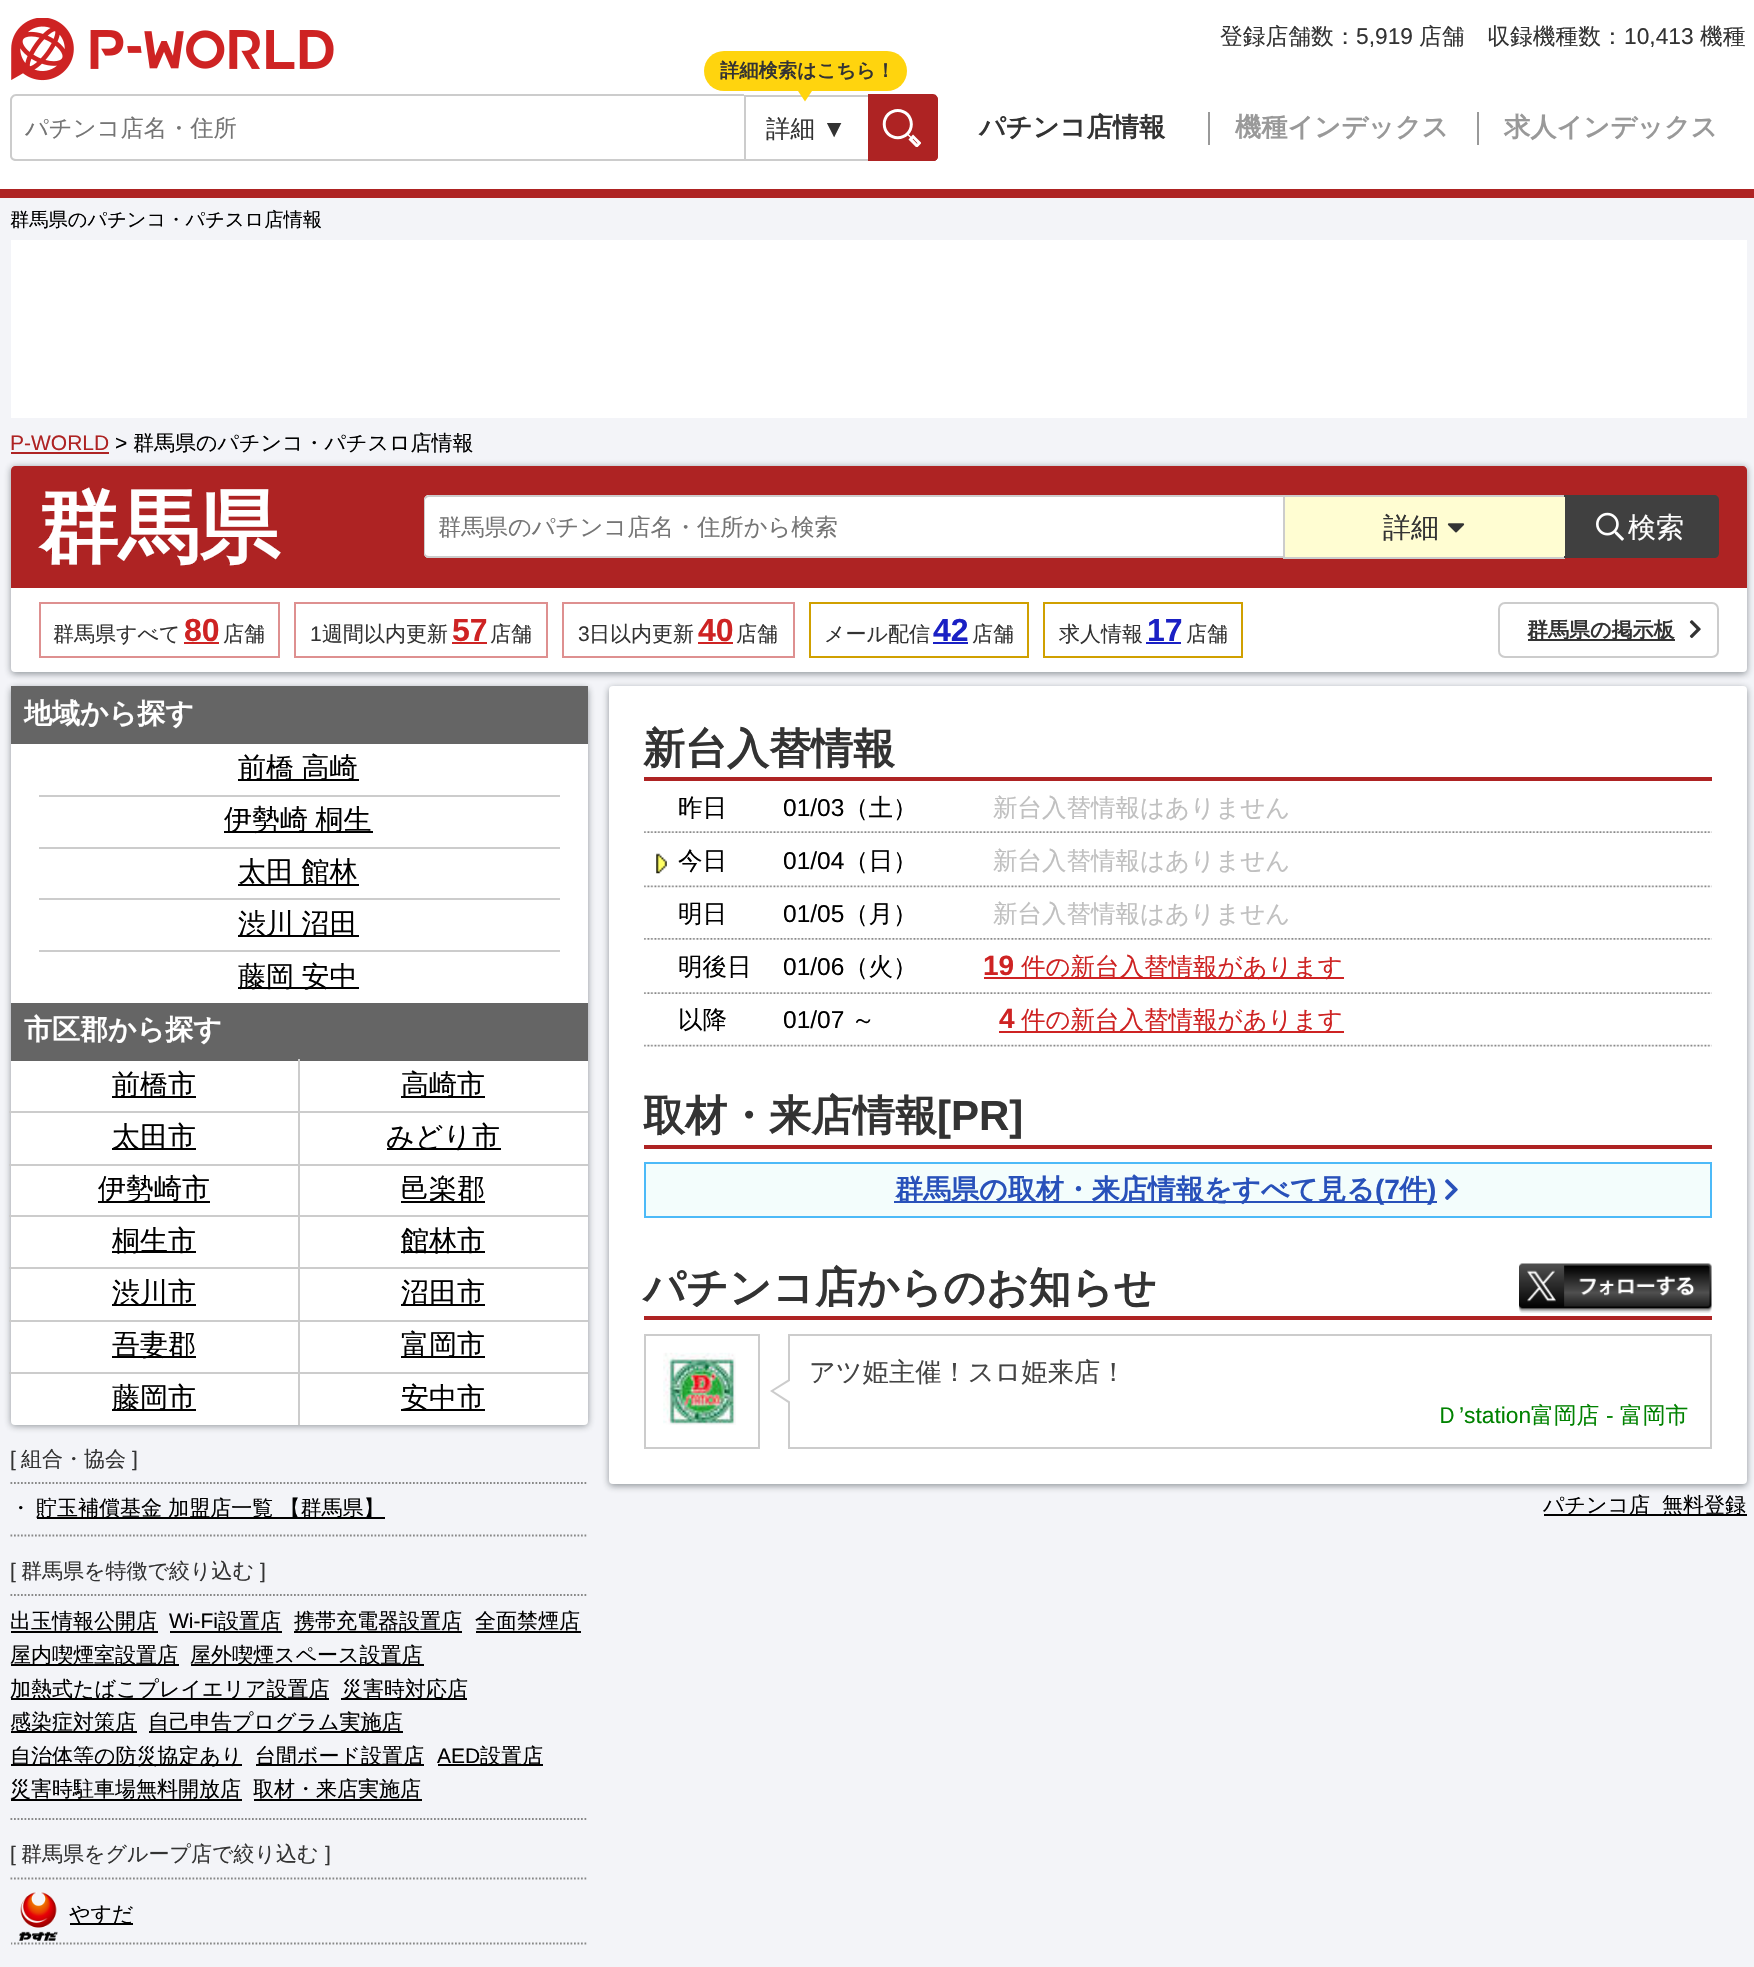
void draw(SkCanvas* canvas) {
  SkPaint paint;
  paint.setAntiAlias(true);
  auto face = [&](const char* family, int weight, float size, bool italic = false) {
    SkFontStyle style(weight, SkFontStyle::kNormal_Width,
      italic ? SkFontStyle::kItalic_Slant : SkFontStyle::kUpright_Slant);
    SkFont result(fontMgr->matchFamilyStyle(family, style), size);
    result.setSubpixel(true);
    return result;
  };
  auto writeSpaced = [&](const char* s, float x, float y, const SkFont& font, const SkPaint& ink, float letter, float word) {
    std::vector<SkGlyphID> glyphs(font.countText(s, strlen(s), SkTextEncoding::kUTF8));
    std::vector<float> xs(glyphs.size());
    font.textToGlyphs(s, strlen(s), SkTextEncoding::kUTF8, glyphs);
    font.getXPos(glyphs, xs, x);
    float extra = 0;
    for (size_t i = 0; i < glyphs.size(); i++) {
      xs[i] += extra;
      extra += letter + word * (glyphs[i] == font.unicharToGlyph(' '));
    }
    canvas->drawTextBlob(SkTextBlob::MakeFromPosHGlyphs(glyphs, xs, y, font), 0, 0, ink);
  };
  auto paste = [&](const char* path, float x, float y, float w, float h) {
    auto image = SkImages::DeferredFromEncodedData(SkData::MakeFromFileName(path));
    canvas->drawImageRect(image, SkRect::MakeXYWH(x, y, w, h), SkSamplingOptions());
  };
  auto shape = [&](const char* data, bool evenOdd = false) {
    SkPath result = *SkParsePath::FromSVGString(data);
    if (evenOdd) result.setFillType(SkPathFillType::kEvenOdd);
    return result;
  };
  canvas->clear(0xffffffff);
  paint.setColor(0xffae2323);
  canvas->drawRect(SkRect::MakeXYWH(0, 189, 1754, 9), paint);
  paste("img/1.png", 11, 18, 323, 63);
  paint.setColor(0xffffd40e);
  canvas->drawRoundRect(SkRect::MakeXYWH(704, 51, 203, 40), 20, 20, paint);
  paint.setColor(0xffcccccc);
  canvas->drawRect(SkRect::MakeXYWH(744, 95, 124, 2), paint);
  paint.setColor(0xffffd40e);
  canvas->drawPath(shape("M798 91H812L805 101.5Z"), paint);
  paint.setColor(0xffcccccc);
  canvas->drawPath(shape("M16 94H744V161H16C13 161 10 159 10 156V100C10 97 13 94 16 94ZM16 96H744V159H16C14 159 12 158 12 156V100C12 98 14 96 16 96Z", true), paint);
  canvas->drawRect(SkRect::MakeXYWH(744, 159, 124, 2), paint);
  canvas->drawRect(SkRect::MakeXYWH(744, 95, 2, 66), paint);
  paint.setColor(0xffae2323);
  canvas->drawPath(shape("M868 95H933C936 95 938 97 938 100V156C938 159 936 161 933 161H868Z"), paint);
  canvas->drawPath(shape("M868 94H933C936 94 938 97 938 100V156C938 159 936 161 933 161H868ZM868 96H933C935 96 936 98 936 100V156C936 158 935 159 933 159H868Z", true), paint);
  paste("img/2.png", 882, 109, 39, 38);
  {
    const struct { float x, y, w, h; SkColor color; } items[] = {
      {1208, 112, 2, 33, 0xff999999},
      {1477, 112, 2, 33, 0xff999999},
      {0, 198, 1754, 1769, 0xfff3f4f8},
      {11, 240, 1736, 178, 0xffffffff},
      {11, 452, 98, 2, 0xffae2323},
    };
    for (auto [x, y, w, h, color] : items) {
      paint.setColor(color);
      canvas->drawRect(SkRect::MakeXYWH(x, y, w, h), paint);
    }
  }
  paint.setColor(0x80293339);
  paint.setMaskFilter(SkMaskFilter::MakeBlur(kNormal_SkBlurStyle, 3.5f));
  canvas->drawRoundRect(SkRect::MakeXYWH(11, 467, 1736, 207), 4, 4, paint);
  paint.setMaskFilter(nullptr);
  paint.setColor(0xffffffff);
  canvas->drawRoundRect(SkRect::MakeXYWH(11, 466, 1736, 206), 4, 4, paint);
  paint.setColor(0xffae2323);
  canvas->drawPath(shape("M15 466H1743C1745 466 1747 468 1747 470V588H11V470C11 468 13 466 15 466Z"), paint);
  paint.setColor(0xffffffff);
  canvas->drawPath(shape("M429 495H1283V558H429C426 558 424 556 424 553V500C424 497 426 495 429 495Z"), paint);
  paint.setColor(0xffcccccc);
  canvas->drawPath(shape("M429 495H1283V558H429C426 558 424 556 424 553V500C424 498 426 495 429 495ZM429 497H1283V556H429C427 556 425 555 425 553V500C425 499 427 497 429 497Z", true), paint);
  {
    const struct { float x, y, w, h; SkColor color; } items[] = {
      {1285, 497, 280, 60, 0xfffffdd2},
      {1283, 495, 282, 2, 0xffcccccc},
      {1283, 557, 282, 2, 0xffcccccc},
      {1283, 495, 2, 63, 0xffcccccc},
    };
    for (auto [x, y, w, h, color] : items) {
      paint.setColor(color);
      canvas->drawRect(SkRect::MakeXYWH(x, y, w, h), paint);
    }
  }
  paste("img/3.png", 1447, 523, 18, 10);
  paint.setColor(0xff404040);
  canvas->drawPath(shape("M1565 495H1714C1717 495 1719 497 1719 500V553C1719 556 1717 558 1714 558H1565Z"), paint);
  canvas->drawPath(shape("M1564 495H1713C1716 495 1718 498 1718 500V553C1718 556 1716 558 1713 558H1564ZM1564 497H1713C1715 497 1717 499 1717 500V553C1717 555 1715 556 1713 556H1564Z", true), paint);
  paste("img/4.png", 1596, 512, 28, 29);
  paint.setStroke(true);
  paint.setStrokeWidth(2);
  paint.setColor(0xffde9090);
  canvas->drawRect(SkRect::MakeXYWH(40, 603, 239, 54), paint);
  paint.setStroke(false);
  paint.setColor(0xffce2323);
  canvas->drawRect(SkRect::MakeXYWH(184, 642, 35, 2), paint);
  paint.setStroke(true);
  paint.setColor(0xffde9090);
  canvas->drawRect(SkRect::MakeXYWH(295, 603, 252, 54), paint);
  paint.setStroke(false);
  paint.setColor(0xffce2323);
  canvas->drawRect(SkRect::MakeXYWH(452, 642, 35, 2), paint);
  paint.setStroke(true);
  paint.setColor(0xffde9090);
  canvas->drawRect(SkRect::MakeXYWH(563, 603, 231, 54), paint);
  paint.setStroke(false);
  paint.setColor(0xffce2323);
  canvas->drawRect(SkRect::MakeXYWH(698, 642, 35, 2), paint);
  paint.setStroke(true);
  paint.setColor(0xffd0a000);
  canvas->drawRect(SkRect::MakeXYWH(810, 603, 218, 54), paint);
  paint.setStroke(false);
  paint.setColor(0xff1a20c4);
  canvas->drawRect(SkRect::MakeXYWH(933, 642, 35, 2), paint);
  paint.setStroke(true);
  paint.setColor(0xffd0a000);
  canvas->drawRect(SkRect::MakeXYWH(1044, 603, 198, 54), paint);
  paint.setStroke(false);
  paint.setColor(0xff1a20c4);
  canvas->drawRect(SkRect::MakeXYWH(1146, 642, 35, 2), paint);
  paint.setStroke(true);
  paint.setColor(0xffcccccc);
  canvas->drawRoundRect(SkRect::MakeXYWH(1499, 603, 219, 54), 6, 6, paint);
  paint.setStroke(false);
  paint.setColor(0xff333333);
  canvas->drawRect(SkRect::MakeXYWH(1528, 639, 147, 2), paint);
  paste("img/5.png", 1689, 620, 12, 19);
  paint.setColor(0x80293339);
  paint.setMaskFilter(SkMaskFilter::MakeBlur(kNormal_SkBlurStyle, 3.5f));
  canvas->drawRoundRect(SkRect::MakeXYWH(11, 688, 577, 738), 4, 4, paint);
  paint.setMaskFilter(nullptr);
  paint.setColor(0xffffffff);
  canvas->drawRoundRect(SkRect::MakeXYWH(11, 686, 577, 739), 4, 4, paint);
  {
    const struct { float x, y, w, h; SkColor color; } items[] = {
      {11, 686, 577, 58, 0xff656565},
      {39, 795, 521, 2, 0xffcccccc},
      {238, 779, 121, 2, 0xff000000},
      {39, 847, 521, 2, 0xffcccccc},
      {224, 831, 149, 2, 0xff000000},
      {39, 898, 521, 2, 0xffcccccc},
      {238, 884, 121, 2, 0xff000000},
      {39, 950, 521, 2, 0xffcccccc},
      {238, 935, 121, 2, 0xff000000},
      {238, 987, 121, 2, 0xff000000},
      {11, 1003, 577, 58, 0xff656565},
      {298, 1372, 2, 53, 0xffcccccc},
      {298, 1372, 290, 2, 0xffcccccc},
      {298, 1320, 2, 54, 0xffcccccc},
      {298, 1320, 290, 2, 0xffcccccc},
      {298, 1267, 2, 54, 0xffcccccc},
      {298, 1267, 290, 2, 0xffcccccc},
      {298, 1215, 2, 54, 0xffcccccc},
      {298, 1215, 290, 2, 0xffcccccc},
      {298, 1164, 2, 52, 0xffcccccc},
      {298, 1164, 290, 2, 0xffcccccc},
      {298, 1111, 2, 55, 0xffcccccc},
      {298, 1111, 290, 2, 0xffcccccc},
      {298, 1059, 2, 54, 0xffcccccc},
      {9, 1111, 290, 2, 0xffcccccc},
      {112, 1096, 84, 2, 0xff000000},
      {401, 1096, 84, 2, 0xff000000},
      {9, 1164, 290, 2, 0xffcccccc},
      {112, 1148, 84, 2, 0xff000000},
      {387, 1148, 114, 2, 0xff000000},
      {9, 1215, 290, 2, 0xffcccccc},
      {98, 1201, 112, 2, 0xff000000},
      {401, 1201, 84, 2, 0xff000000},
      {9, 1267, 290, 2, 0xffcccccc},
      {112, 1251, 84, 2, 0xff000000},
      {401, 1251, 84, 2, 0xff000000},
      {9, 1320, 290, 2, 0xffcccccc},
      {112, 1304, 84, 2, 0xff000000},
      {401, 1304, 84, 2, 0xff000000},
      {9, 1372, 290, 2, 0xffcccccc},
      {112, 1356, 84, 2, 0xff000000},
      {401, 1356, 84, 2, 0xff000000},
      {112, 1409, 84, 2, 0xff000000},
      {401, 1409, 84, 2, 0xff000000},
    };
    for (auto [x, y, w, h, color] : items) {
      paint.setColor(color);
      canvas->drawRect(SkRect::MakeXYWH(x, y, w, h), paint);
    }
  }
  paint.setStroke(true);
  paint.setStrokeWidth(1.8f);
  paint.setColor(0xff888888);
  paint.setPathEffect(SkDashPathEffect::Make({{1.75f, 1.75f}}, 0));
  canvas->drawPath(shape("M10.5 1483H588"), paint);
  paint.setPathEffect(nullptr);
  paint.setPathEffect(SkDashPathEffect::Make({{1.75f, 1.75f}}, 0));
  canvas->drawPath(shape("M10.5 1535.5H588"), paint);
  paint.setPathEffect(nullptr);
  paint.setStroke(false);
  paint.setColor(0xff000000);
  canvas->drawRect(SkRect::MakeXYWH(37, 1517, 348, 2), paint);
  paint.setStroke(true);
  paint.setColor(0xff888888);
  paint.setPathEffect(SkDashPathEffect::Make({{1.75f, 1.75f}}, 0));
  canvas->drawPath(shape("M10.5 1595H588"), paint);
  paint.setPathEffect(nullptr);
  paint.setPathEffect(SkDashPathEffect::Make({{1.75f, 1.75f}}, 0));
  canvas->drawPath(shape("M10.5 1819H588"), paint);
  paint.setPathEffect(nullptr);
  paint.setStroke(false);
  {
    const struct { float x, y, w, h; SkColor color; } items[] = {
      {11, 1631, 147, 2, 0xff000000},
      {170, 1631, 112, 2, 0xff000000},
      {294, 1631, 168, 2, 0xff000000},
      {476, 1631, 105, 2, 0xff000000},
      {11, 1664, 168, 2, 0xff000000},
      {191, 1664, 233, 2, 0xff000000},
      {11, 1698, 318, 2, 0xff000000},
      {341, 1698, 126, 2, 0xff000000},
      {11, 1731, 126, 2, 0xff000000},
      {149, 1731, 254, 2, 0xff000000},
      {11, 1764, 231, 2, 0xff000000},
      {256, 1764, 168, 2, 0xff000000},
      {438, 1764, 105, 2, 0xff000000},
      {11, 1799, 231, 2, 0xff000000},
      {254, 1799, 168, 2, 0xff000000},
    };
    for (auto [x, y, w, h, color] : items) {
      paint.setColor(color);
      canvas->drawRect(SkRect::MakeXYWH(x, y, w, h), paint);
    }
  }
  paint.setStroke(true);
  paint.setColor(0xff888888);
  paint.setPathEffect(SkDashPathEffect::Make({{1.75f, 1.75f}}, 0));
  canvas->drawPath(shape("M10.5 1878.5H588"), paint);
  paint.setPathEffect(nullptr);
  canvas->save();
  canvas->clipRect(SkRect::MakeXYWH(11, 1880, 577, 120));
  paint.setPathEffect(SkDashPathEffect::Make({{1.75f, 1.75f}}, 0));
  canvas->drawPath(shape("M10.5 1943.5H588"), paint);
  paint.setPathEffect(nullptr);
  canvas->restore();
  paste("img/6.png", 19, 1892, 39, 49);
  paint.setStroke(false);
  paint.setColor(0xff000000);
  canvas->drawRect(SkRect::MakeXYWH(70, 1923, 63, 2), paint);
  paint.setColor(0x80293339);
  paint.setMaskFilter(SkMaskFilter::MakeBlur(kNormal_SkBlurStyle, 3.5f));
  canvas->drawRoundRect(SkRect::MakeXYWH(609, 688, 1138, 798), 4, 4, paint);
  paint.setMaskFilter(nullptr);
  paint.setColor(0xffffffff);
  canvas->drawRoundRect(SkRect::MakeXYWH(609, 686, 1138, 798), 4, 4, paint);
  paint.setColor(0xffae2323);
  canvas->drawRect(SkRect::MakeXYWH(644, 777, 1068, 4), paint);
  paste("img/7.png", 644, 831, 1068, 2);
  paste("img/8.png", 644, 885, 1068, 3);
  paste("img/9.png", 656, 853, 11, 21);
  paste("img/10.png", 644, 938, 1068, 2);
  paste("img/7.png", 644, 992, 1068, 2);
  paint.setColor(0xffce2323);
  canvas->drawRect(SkRect::MakeXYWH(984, 977, 360, 2), paint);
  paste("img/11.png", 644, 1044, 1068, 3);
  canvas->drawRect(SkRect::MakeXYWH(999, 1031, 345, 2), paint);
  paint.setColor(0xffae2323);
  canvas->drawRect(SkRect::MakeXYWH(644, 1145, 1068, 4), paint);
  paint.setColor(0xfff3fdfc);
  canvas->drawRect(SkRect::MakeXYWH(645, 1163, 1066, 54), paint);
  paint.setStroke(true);
  paint.setStrokeWidth(2);
  paint.setColor(0xff4cbaf8);
  canvas->drawRect(SkRect::MakeXYWH(645, 1163, 1066, 54), paint);
  paint.setStroke(false);
  paint.setColor(0xff2851ba);
  canvas->drawRect(SkRect::MakeXYWH(894, 1201, 543, 2), paint);
  paste("img/12.png", 1445, 1179, 13, 21);
  paint.setColor(0xffae2323);
  canvas->drawRect(SkRect::MakeXYWH(644, 1316, 1068, 4), paint);
  paste("img/13.png", 1519, 1263, 193, 50);
  paint.setStroke(true);
  paint.setColor(0xffcccccc);
  canvas->drawRect(SkRect::MakeXYWH(645, 1335, 114, 113), paint);
  paste("img/14.png", 663, 1352, 73, 73);
  canvas->drawRect(SkRect::MakeXYWH(789, 1335, 922, 113), paint);
  paint.setStroke(false);
  canvas->drawPath(shape("M789 1379V1403.5L770 1391Z"), paint);
  paint.setColor(0xffffffff);
  canvas->drawPath(shape("M793 1379V1403.5L773.5 1391Z"), paint);
  paint.setColor(0xff000000);
  canvas->drawRect(SkRect::MakeXYWH(1544, 1514, 203, 2), paint);
  auto f0 = face("WenQuanYi Zen Hei", 500, 22.75f);
  paint.setColor(0xff333333);
  canvas->drawString("登録店舗数：", 1220, 44, f0, paint);
  auto f1 = face("Liberation Sans", 400, 22.75f);
  canvas->drawString("5,919", 1356, 44, f1, paint);
  canvas->drawString("店舗　収録機種数：", 1419, 44, f0, paint);
  canvas->drawString("10,413", 1624, 44, f1, paint);
  canvas->drawString("機種", 1700, 44, f0, paint);
  auto f2 = face("WenQuanYi Zen Hei", 700, 19.25f);
  canvas->drawString("詳細検索はこちら！", 720, 77, f2, paint);
  auto f3 = face("WenQuanYi Zen Hei", 500, 23.3f);
  paint.setColor(0xff757575);
  canvas->drawString("パチンコ店名・住所", 25, 136, f3, paint);
  auto f4 = face("WenQuanYi Zen Hei", 500, 24.5f);
  paint.setColor(0xff333333);
  canvas->drawString("詳細", 766, 137, f4, paint);
  auto f5 = face("Liberation Sans", 400, 24.5f);
  canvas->drawString("▼", 822, 137, f5, paint);
  auto f6 = face("WenQuanYi Zen Hei", 700, 26.25f);
  canvas->drawString("パチンコ店情報", 979, 136, f6, paint);
  paint.setColor(0xff999999);
  canvas->drawString("機種インデックス", 1235, 136, f6, paint);
  canvas->drawString("求人インデックス", 1504, 136, f6, paint);
  auto f7 = face("WenQuanYi Zen Hei", 500, 19.25f);
  paint.setColor(0xff000000);
  canvas->drawString("群馬県のパチンコ・パチスロ店情報", 10, 226, f7, paint);
  auto f8 = face("Liberation Sans", 400, 21);
  paint.setColor(0xffae2323);
  canvas->drawString("P-WORLD", 10, 450, f8, paint);
  paint.setColor(0xff000000);
  canvas->drawString(">", 115, 450, f8, paint);
  auto f9 = face("WenQuanYi Zen Hei", 500, 21);
  canvas->drawString("群馬県のパチンコ・パチスロ店情報", 133, 450, f9, paint);
  auto f10 = face("WenQuanYi Zen Hei", 700, 80.5f);
  paint.setColor(0xffffffff);
  canvas->drawString("群馬県", 38, 555, f10, paint);
  paint.setColor(0xff757575);
  canvas->drawString("群馬県のパチンコ店名・住所から検索", 438, 535, f3, paint);
  auto f11 = face("WenQuanYi Zen Hei", 500, 28);
  paint.setColor(0xff333333);
  canvas->drawString("詳細", 1383, 537, f11, paint);
  paint.setColor(0xffffffff);
  canvas->drawString("検索", 1628, 537, f11, paint);
  paint.setColor(0xff333333);
  canvas->drawString("群馬県すべて", 53, 641, f9, paint);
  auto f12 = face("Liberation Sans", 700, 32);
  paint.setColor(0xffce2323);
  canvas->drawString("80", 184, 641, f12, paint);
  paint.setColor(0xff333333);
  canvas->drawString("店舗", 223, 641, f9, paint);
  canvas->drawString("1", 310, 641, f8, paint);
  canvas->drawString("週間以内更新", 322, 641, f9, paint);
  paint.setColor(0xffce2323);
  canvas->drawString("57", 452, 641, f12, paint);
  paint.setColor(0xff333333);
  canvas->drawString("店舗", 490, 641, f9, paint);
  canvas->drawString("3", 578, 641, f8, paint);
  canvas->drawString("日以内更新", 589, 641, f9, paint);
  paint.setColor(0xffce2323);
  canvas->drawString("40", 698, 641, f12, paint);
  paint.setColor(0xff333333);
  canvas->drawString("店舗", 736, 641, f9, paint);
  canvas->drawString("メール配信", 824, 641, f9, paint);
  paint.setColor(0xff1a20c4);
  canvas->drawString("42", 933, 641, f12, paint);
  paint.setColor(0xff333333);
  canvas->drawString("店舗", 972, 641, f9, paint);
  canvas->drawString("求人情報", 1059, 641, f9, paint);
  paint.setColor(0xff1a20c4);
  canvas->drawString("17", 1147, 641, f12, paint);
  paint.setColor(0xff333333);
  canvas->drawString("店舗", 1186, 641, f9, paint);
  auto f13 = face("WenQuanYi Zen Hei", 700, 21);
  canvas->drawString("群馬県の掲示板", 1527, 637, f13, paint);
  auto f14 = face("WenQuanYi Zen Hei", 700, 28);
  paint.setColor(0xffffffff);
  canvas->drawString("地域から探す", 24, 723, f14, paint);
  paint.setColor(0xff000000);
  {
    const struct { const char* s; float x, y; } items[] = {
      {"前橋 高崎", 238, 777},
      {"伊勢崎 桐生", 224, 829},
      {"太田 館林", 238, 881},
      {"渋川 沼田", 238, 933},
      {"藤岡 安中", 238, 986},
    };
    for (auto [s, x, y] : items) {
      writeSpaced(s, x, y, f11, paint, 0, -1);
    }
  }
  paint.setColor(0xffffffff);
  canvas->drawString("市区郡から探す", 24, 1039, f14, paint);
  paint.setColor(0xff000000);
  {
    const struct { const char* s; float x, y; } items[] = {
      {"前橋市", 112, 1094},
      {"高崎市", 401, 1094},
      {"太田市", 112, 1146},
      {"みどり市", 386, 1146},
      {"伊勢崎市", 98, 1198},
      {"邑楽郡", 401, 1198},
      {"桐生市", 112, 1250},
      {"館林市", 401, 1250},
      {"渋川市", 112, 1302},
      {"沼田市", 401, 1302},
      {"吾妻郡", 112, 1354},
      {"富岡市", 401, 1354},
      {"藤岡市", 112, 1407},
      {"安中市", 401, 1407},
    };
    for (auto [s, x, y] : items) {
      canvas->drawString(s, x, y, f11, paint);
    }
  }
  paint.setColor(0xff333333);
  canvas->drawString("[", 10, 1466, f8, paint);
  canvas->drawString("組合・協会", 21, 1466, f9, paint);
  canvas->drawString("]", 132, 1466, f8, paint);
  paint.setColor(0xff000000);
  canvas->drawString("・", 10, 1515, f9, paint);
  canvas->drawString("貯玉補償基金 加盟店一覧 【群馬県】", 36, 1515, f9, paint);
  paint.setColor(0xff333333);
  canvas->drawString("[", 10, 1578, f8, paint);
  canvas->drawString("群馬県を特徴で絞り込む", 21, 1578, f9, paint);
  canvas->drawString("]", 260, 1578, f8, paint);
  paint.setColor(0xff000000);
  canvas->drawString("出玉情報公開店", 10, 1628, f9, paint);
  canvas->drawString("Wi-Fi", 169, 1628, f8, paint);
  {
    const struct { const char* s; float x, y; } items[] = {
      {"設置店", 218, 1628},
      {"携帯充電器設置店", 294, 1628},
      {"全面禁煙店", 475, 1628},
      {"屋内喫煙室設置店", 10, 1662},
      {"屋外喫煙スペース設置店", 190, 1662},
      {"加熱式たばこプレイエリア設置店", 10, 1696},
      {"災害時対応店", 342, 1696},
      {"感染症対策店", 10, 1729},
      {"自己申告プログラム実施店", 148, 1729},
      {"自治体等の防災協定あり", 10, 1763},
      {"台間ボード設置店", 255, 1763},
    };
    for (auto [s, x, y] : items) {
      canvas->drawString(s, x, y, f9, paint);
    }
  }
  canvas->drawString("AED", 437, 1763, f8, paint);
  {
    const struct { const char* s; float x, y; } items[] = {
      {"設置店", 480, 1763},
      {"災害時駐車場無料開放店", 10, 1796},
      {"取材・来店実施店", 253, 1796},
    };
    for (auto [s, x, y] : items) {
      canvas->drawString(s, x, y, f9, paint);
    }
  }
  paint.setColor(0xff333333);
  canvas->drawString("[", 10, 1861, f8, paint);
  canvas->drawString("群馬県をグループ店で絞り込む", 21, 1861, f9, paint);
  canvas->drawString("]", 325, 1861, f8, paint);
  paint.setColor(0xff000000);
  canvas->drawString("やすだ", 69, 1921, f9, paint);
  auto f15 = face("WenQuanYi Zen Hei", 700, 42);
  paint.setColor(0xff333333);
  canvas->drawString("新台入替情報", 643, 763, f15, paint);
  paint.setColor(0xff000000);
  canvas->drawString("昨日", 678, 816, f4, paint);
  canvas->drawString("01/03", 783, 816, f5, paint);
  canvas->drawString("（土）", 844, 816, f4, paint);
  paint.setColor(0xffc0c0c0);
  canvas->drawString("新台入替情報はありません", 993, 816, f4, paint);
  paint.setColor(0xff000000);
  canvas->drawString("今日", 678, 869, f4, paint);
  canvas->drawString("01/04", 783, 869, f5, paint);
  canvas->drawString("（日）", 844, 869, f4, paint);
  paint.setColor(0xffc0c0c0);
  canvas->drawString("新台入替情報はありません", 993, 869, f4, paint);
  paint.setColor(0xff000000);
  canvas->drawString("明日", 678, 922, f4, paint);
  canvas->drawString("01/05", 783, 922, f5, paint);
  canvas->drawString("（月）", 844, 922, f4, paint);
  paint.setColor(0xffc0c0c0);
  canvas->drawString("新台入替情報はありません", 993, 922, f4, paint);
  paint.setColor(0xff000000);
  canvas->drawString("明後日", 678, 975, f4, paint);
  canvas->drawString("01/06", 783, 975, f5, paint);
  canvas->drawString("（火）", 844, 975, f4, paint);
  auto f16 = face("Liberation Sans", 700, 28);
  paint.setColor(0xffce2323);
  canvas->drawString("19", 983, 975, f16, paint);
  canvas->drawString("件の新台入替情報があります", 1021, 975, f4, paint);
  paint.setColor(0xff000000);
  canvas->drawString("以降", 678, 1028, f4, paint);
  canvas->drawString("01/07", 783, 1028, f5, paint);
  canvas->drawString("～", 851, 1028, f4, paint);
  paint.setColor(0xffce2323);
  canvas->drawString("4", 999, 1028, f16, paint);
  canvas->drawString("件の新台入替情報があります", 1021, 1028, f4, paint);
  paint.setColor(0xff333333);
  canvas->drawString("取材・来店情報", 643, 1130, f15, paint);
  auto f17 = face("Liberation Sans", 700, 42);
  canvas->drawString("[PR]", 937, 1130, f17, paint);
  paint.setColor(0xff2851ba);
  canvas->drawString("群馬県の取材・来店情報をすべて見る", 895, 1199, f14, paint);
  canvas->drawString("(7", 1375, 1199, f16, paint);
  canvas->drawString("件", 1399, 1199, f14, paint);
  canvas->drawString(")", 1427, 1199, f16, paint);
  paint.setColor(0xff333333);
  canvas->drawString("パチンコ店からのお知らせ", 643, 1302, f15, paint);
  auto f18 = face("WenQuanYi Zen Hei", 500, 26.25f);
  paint.setColor(0xff444444);
  canvas->drawString("アツ姫主催！スロ姫来店！", 809, 1381, f18, paint);
  paint.setColor(0xff008200);
  canvas->drawString("Ｄ", 1436, 1423, f0, paint);
  canvas->drawString("’station", 1459, 1423, f1, paint);
  canvas->drawString("富岡店", 1531, 1423, f0, paint);
  canvas->drawString("-", 1606, 1423, f1, paint);
  canvas->drawString("富岡市", 1620, 1423, f0, paint);
  paint.setColor(0xff000000);
  canvas->drawString("パチンコ店", 1543, 1512, f9, paint);
  canvas->drawString("無料登録", 1662, 1512, f9, paint);
}
